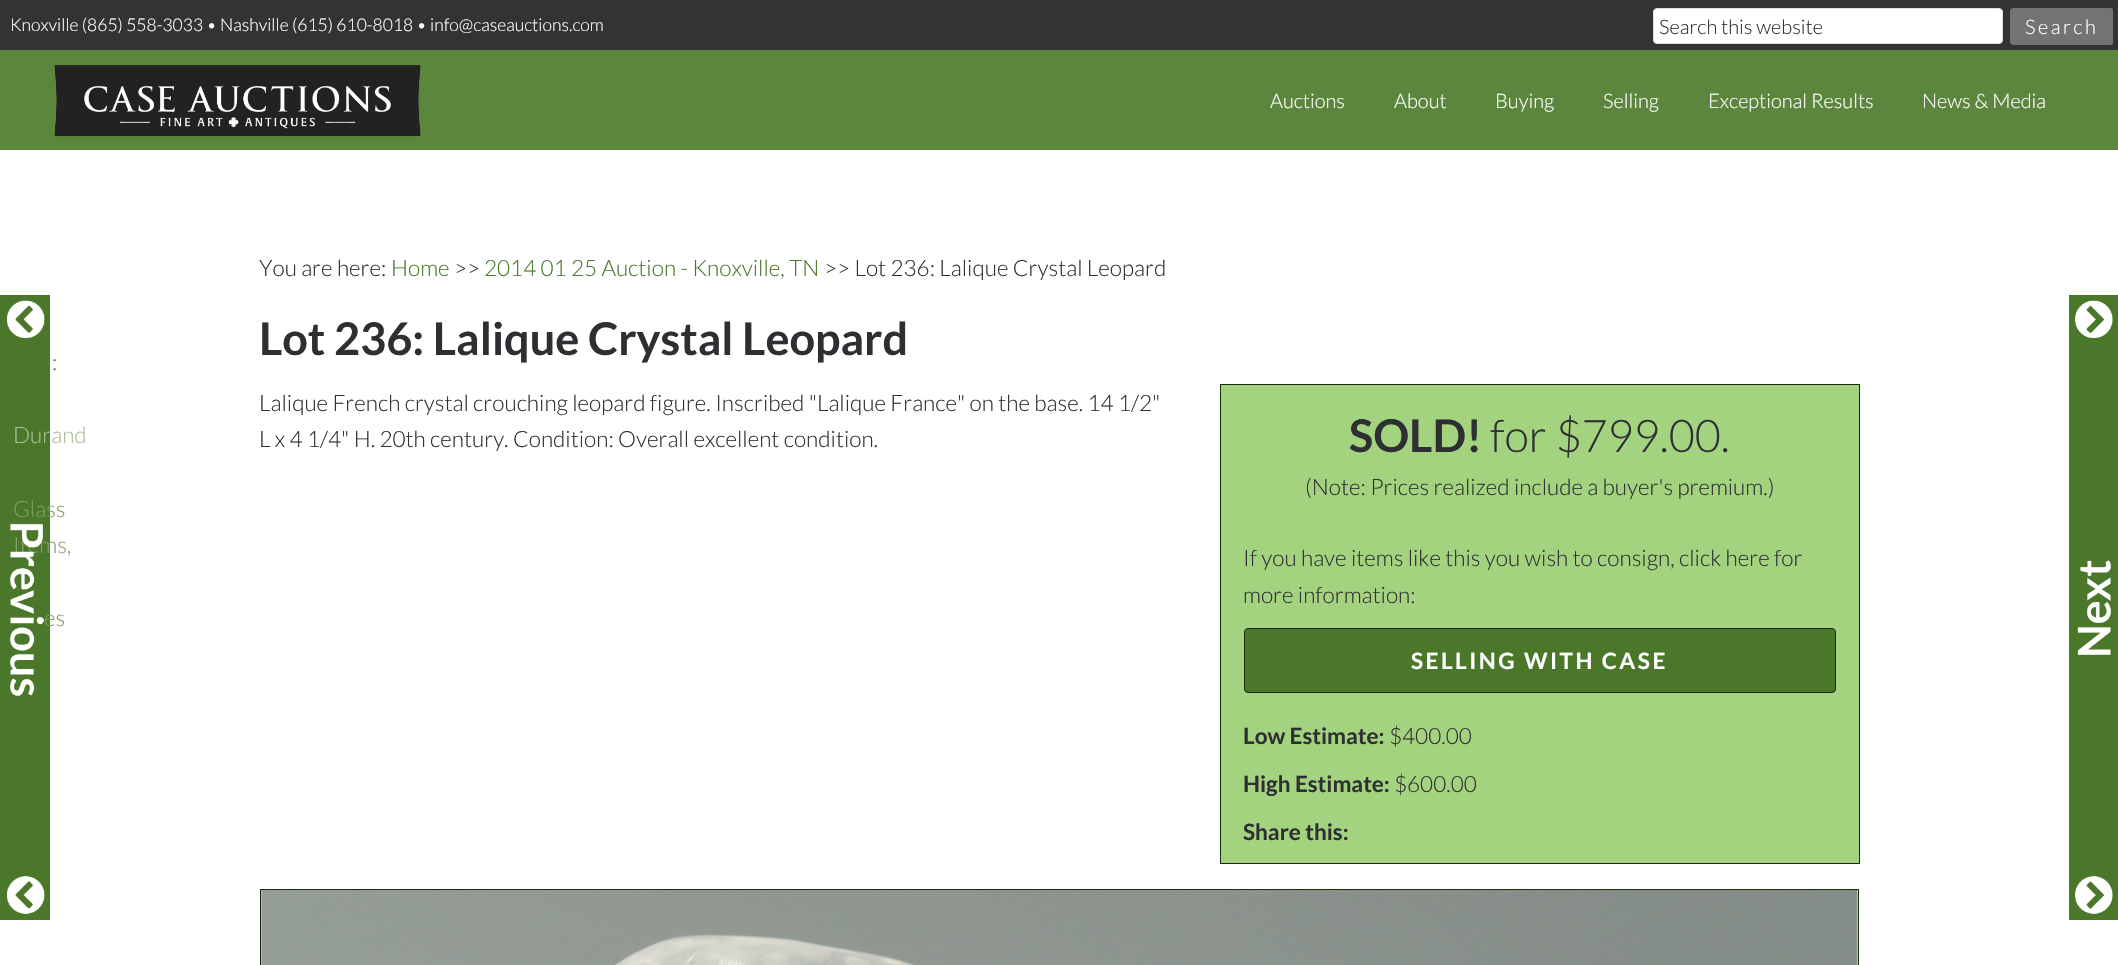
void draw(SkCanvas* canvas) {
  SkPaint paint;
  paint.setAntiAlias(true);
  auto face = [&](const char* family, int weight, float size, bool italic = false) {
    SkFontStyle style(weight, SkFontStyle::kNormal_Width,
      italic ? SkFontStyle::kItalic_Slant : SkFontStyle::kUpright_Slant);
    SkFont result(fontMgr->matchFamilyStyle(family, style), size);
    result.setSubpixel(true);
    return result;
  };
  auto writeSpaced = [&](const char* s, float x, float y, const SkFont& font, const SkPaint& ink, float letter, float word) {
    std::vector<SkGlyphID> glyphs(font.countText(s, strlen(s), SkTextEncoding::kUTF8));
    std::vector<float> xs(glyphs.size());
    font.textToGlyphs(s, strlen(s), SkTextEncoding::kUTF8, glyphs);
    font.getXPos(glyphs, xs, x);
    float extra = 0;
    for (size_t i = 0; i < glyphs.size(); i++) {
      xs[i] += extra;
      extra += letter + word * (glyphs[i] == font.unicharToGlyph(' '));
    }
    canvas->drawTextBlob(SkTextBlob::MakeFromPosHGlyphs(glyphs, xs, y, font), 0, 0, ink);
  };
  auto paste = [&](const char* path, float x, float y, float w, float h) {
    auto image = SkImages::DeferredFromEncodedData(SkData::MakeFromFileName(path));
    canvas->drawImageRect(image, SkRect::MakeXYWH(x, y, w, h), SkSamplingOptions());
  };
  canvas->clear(0xff333333);
  paint.setColor(0xffffffff);
  canvas->drawRoundRect(SkRect::MakeXYWH(1653.5f, 8.5f, 349, 35), 3.5f, 3.5f, paint);
  paint.setStroke(true);
  paint.setStrokeWidth(1);
  paint.setColor(0xffdddddd);
  canvas->drawRoundRect(SkRect::MakeXYWH(1653.5f, 8.5f, 349, 35), 3.5f, 3.5f, paint);
  canvas->save();
  canvas->clipRect(SkRect::MakeXYWH(1653, 0, 460, 50));
  paint.setStroke(false);
  paint.setColor(0xff737373);
  canvas->drawRoundRect(SkRect::MakeXYWH(2010, 8, 104, 37), 4, 4, paint);
  canvas->restore();
  paint.setColor(0xff5c853e);
  canvas->drawRect(SkRect::MakeXYWH(0, 50, 2118, 100), paint);
  paste("img/1.png", 54, 65, 367, 72);
  {
    const struct { float x, y, w, h; SkColor color; } items[] = {
      {0, 150, 2118, 815, 0xffffffff},
      {0, 295, 50, 625, 0xff4a7729},
      {2069, 295, 49, 625, 0xff4a7729},
    };
    for (auto [x, y, w, h, color] : items) {
      paint.setColor(color);
      canvas->drawRect(SkRect::MakeXYWH(x, y, w, h), paint);
    }
  }
  paste("img/3.png", 2075, 300, 38, 614);
  paint.setColor(0xffa3d37f);
  canvas->drawRect(SkRect::MakeXYWH(1220.5f, 384.5f, 639, 479), paint);
  paint.setStroke(true);
  paint.setColor(0xff1b2b0f);
  canvas->drawRect(SkRect::MakeXYWH(1220.5f, 384.5f, 639, 479), paint);
  paint.setStroke(false);
  paint.setColor(0xff4a7729);
  canvas->drawRoundRect(SkRect::MakeXYWH(1244.5f, 628.5f, 591, 64), 3.5f, 3.5f, paint);
  paint.setStroke(true);
  paint.setColor(0xff1b2b0f);
  canvas->drawRoundRect(SkRect::MakeXYWH(1244.5f, 628.5f, 591, 64), 3.5f, 3.5f, paint);
  canvas->drawRect(SkRect::MakeXYWH(260.5f, 889.5f, 1598, 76), paint);
  paste("img/4.png", 261, 890, 1597, 75);
  auto f0 = face("Lato", 300, 17.5f);
  paint.setStroke(false);
  paint.setColor(0xffffffff);
  canvas->drawString("Knoxville (865) 558-3033 • Nashville (615) 610-8018 • info@caseauctions.com", 10, 31, f0, paint);
  auto f1 = face("Lato", 300, 20);
  paint.setColor(0xff2e2f33);
  canvas->drawString("Search this website", 1659, 34, f1, paint);
  paint.setColor(0xffffffff);
  writeSpaced("Search", 2025, 34, f1, paint, 2.5f, 0);
  {
    const struct { const char* s; float x, y; } items[] = {
      {"Auctions", 1270, 108},
      {"About", 1394, 108},
      {"Buying", 1495, 108},
      {"Selling", 1603, 108},
      {"Exceptional Results", 1708, 108},
      {"News & Media", 1922, 108},
    };
    for (auto [s, x, y] : items) {
      canvas->drawString(s, x, y, f1, paint);
    }
  }
  auto f2 = face("Lato", 300, 22.5f);
  paint.setColor(0xff2e2f33);
  canvas->drawString("You are here:", 259, 276, f2, paint);
  paint.setColor(0xff4a7729);
  canvas->drawString("Home", 391, 276, f2, paint);
  paint.setColor(0xff2e2f33);
  canvas->drawString(">>", 454, 276, f2, paint);
  paint.setColor(0xff4a7729);
  canvas->drawString("2014 01 25 Auction - Knoxville, TN", 484, 276, f2, paint);
  paint.setColor(0xff2e2f33);
  canvas->drawString(">> Lot 236: Lalique Crystal Leopard", 824, 276, f2, paint);
  paint.setColor(0xff568037);
  canvas->drawString(":", 52, 370, f2, paint);
  paint.setColor(0xffa9be99);
  canvas->drawString("Durand", 13, 443, f2, paint);
  paint.setColor(0xff7c9d64);
  canvas->drawString("Glass", 13, 517, f2, paint);
  paint.setColor(0xff83a26d);
  canvas->drawString("Items,", 13, 553, f2, paint);
  paste("img/2.png", 7, 300, 38, 614);
  paint.setColor(0xff7c9d64);
  canvas->drawString("es", 44, 626, f2, paint);
  auto f3 = face("Lato", 700, 45);
  paint.setColor(0xff2e2f33);
  canvas->drawString("Lot 236: Lalique Crystal Leopard", 259, 355, f3, paint);
  canvas->drawString("Lalique French crystal crouching leopard figure. Inscribed \"Lalique France\" on the base. 14 1/2\"", 259, 411, f2, paint);
  canvas->drawString("L x 4 1/4\" H. 20th century. Condition: Overall excellent condition.", 259, 447, f2, paint);
  canvas->drawString("SOLD!", 1349, 452, f3, paint);
  auto f4 = face("Lato", 300, 45);
  canvas->drawString("for $799.00.", 1490, 452, f4, paint);
  {
    const struct { const char* s; float x, y; } items[] = {
      {"(Note: Prices realized include a buyer's premium.)", 1305, 495},
      {"If you have items like this you wish to consign, click here for", 1243, 566},
      {"more information:", 1243, 603},
    };
    for (auto [s, x, y] : items) {
      canvas->drawString(s, x, y, f2, paint);
    }
  }
  auto f5 = face("Lato", 700, 22.5f);
  paint.setColor(0xffffffff);
  writeSpaced("SELLING WITH CASE", 1411, 669, f5, paint, 2.5f, 0);
  paint.setColor(0xff2e2f33);
  canvas->drawString("Low Estimate:", 1243, 744, f5, paint);
  canvas->drawString("$400.00", 1389, 744, f2, paint);
  canvas->drawString("High Estimate:", 1243, 792, f5, paint);
  canvas->drawString("$600.00", 1394, 792, f2, paint);
  canvas->drawString("Share this:", 1243, 840, f5, paint);
}
